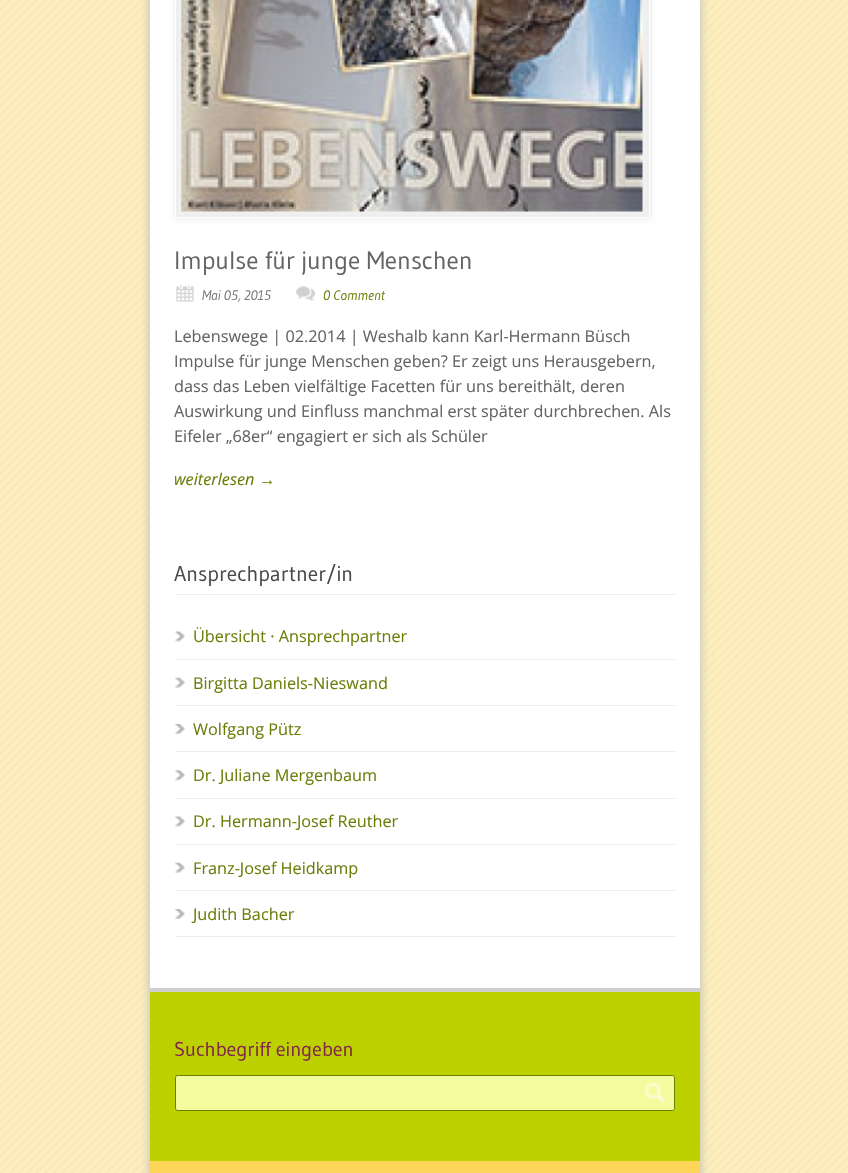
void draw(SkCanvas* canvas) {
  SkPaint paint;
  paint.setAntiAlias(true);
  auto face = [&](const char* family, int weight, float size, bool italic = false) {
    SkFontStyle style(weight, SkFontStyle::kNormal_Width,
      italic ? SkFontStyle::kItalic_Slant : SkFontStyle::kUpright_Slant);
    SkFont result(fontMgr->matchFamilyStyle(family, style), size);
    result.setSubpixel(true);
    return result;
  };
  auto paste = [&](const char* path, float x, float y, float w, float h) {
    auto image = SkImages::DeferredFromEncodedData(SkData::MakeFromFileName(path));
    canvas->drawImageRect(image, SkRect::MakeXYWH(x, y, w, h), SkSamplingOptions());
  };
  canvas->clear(0xfffeeebd);
  paste("img/1.png", 0, 0, 848, 1173);
  paint.setColor(0xffbbbbbb);
  paint.setMaskFilter(SkMaskFilter::MakeBlur(kNormal_SkBlurStyle, 5));
  canvas->drawRect(SkRect::MakeXYWH(150, -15, 550, 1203), paint);
  paint.setMaskFilter(nullptr);
  paint.setColor(0xffffffff);
  canvas->drawRect(SkRect::MakeXYWH(150, 0, 550, 988), paint);
  paint.setColor(0xffececec);
  paint.setMaskFilter(SkMaskFilter::MakeBlur(kNormal_SkBlurStyle, 2.5f));
  canvas->drawRect(SkRect::MakeXYWH(174, -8, 477, 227), paint);
  paint.setMaskFilter(nullptr);
  paint.setColor(0xfff0f0f0);
  canvas->drawRect(SkRect::MakeXYWH(178, 0, 469, 215), paint);
  paint.setStroke(true);
  paint.setStrokeWidth(1);
  paint.setColor(0xffffffff);
  canvas->drawRect(SkRect::MakeXYWH(175.5f, -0.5f, 474, 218), paint);
  paste("img/2.png", 181, 0, 462, 212);
  paste("img/3.png", 176, 285, 18, 17);
  paste("img/4.png", 296, 286, 20, 15);
  paint.setStroke(false);
  paint.setColor(0xffececec);
  canvas->drawRect(SkRect::MakeXYWH(175, 594, 500, 1), paint);
  paste("img/5.png", 175, 631, 10, 11);
  canvas->drawRect(SkRect::MakeXYWH(175, 659, 500, 1), paint);
  paste("img/6.png", 175, 677, 10, 11);
  canvas->drawRect(SkRect::MakeXYWH(175, 705, 500, 1), paint);
  paste("img/7.png", 175, 724, 10, 10);
  canvas->drawRect(SkRect::MakeXYWH(175, 751, 500, 1), paint);
  paste("img/8.png", 175, 770, 10, 11);
  canvas->drawRect(SkRect::MakeXYWH(175, 798, 500, 1), paint);
  paste("img/5.png", 175, 816, 10, 11);
  canvas->drawRect(SkRect::MakeXYWH(175, 844, 500, 1), paint);
  paste("img/6.png", 175, 862, 10, 11);
  canvas->drawRect(SkRect::MakeXYWH(175, 890, 500, 1), paint);
  paste("img/7.png", 175, 909, 10, 10);
  {
    const struct { float x, y, w, h; SkColor color; } items[] = {
      {175, 936, 500, 1, 0xffececec},
      {150, 992, 550, 169, 0xffbdd000},
      {150, 988, 550, 4, 0xffcfcfcf},
    };
    for (auto [x, y, w, h, color] : items) {
      paint.setColor(color);
      canvas->drawRect(SkRect::MakeXYWH(x, y, w, h), paint);
    }
  }
  paint.setColor(0xfff2fb9d);
  canvas->drawRoundRect(SkRect::MakeXYWH(175.5f, 1075.5f, 499, 35), 2, 2, paint);
  paint.setStroke(true);
  paint.setColor(0xff6a7e08);
  canvas->drawRoundRect(SkRect::MakeXYWH(175.5f, 1075.5f, 499, 35), 2, 2, paint);
  paste("img/9.png", 644, 1082, 21, 21);
  paint.setStroke(false);
  paint.setColor(0xfffcd559);
  canvas->drawRect(SkRect::MakeXYWH(150, 1161, 550, 12), paint);
  auto f0 = face("Gudea", 400, 25);
  paint.setColor(0xff646464);
  canvas->drawString("Impulse für junge Menschen", 174, 269, f0, paint);
  auto f1 = face("Gudea", 400, 13.75f, true);
  paint.setColor(0xff797979);
  canvas->drawString("Mai 05, 2015", 202, 300, f1, paint);
  paint.setColor(0xff6a7e08);
  canvas->drawString("0 Comment", 323, 300, f1, paint);
  auto f2 = face("Open Sans", 400, 16.25f);
  paint.setColor(0xff646464);
  {
    const struct { const char* s; float x, y; } items[] = {
      {"Lebenswege | 02.2014 | Weshalb kann Karl-Hermann Büsch", 174, 342},
      {"Impulse für junge Menschen geben? Er zeigt uns Herausgebern,", 174, 367},
      {"dass das Leben vielfältige Facetten für uns bereithält, deren", 174, 392},
      {"Auswirkung und Einfluss manchmal erst später durchbrechen. Als", 174, 417},
      {"Eifeler „68er“ engagiert er sich als Schüler", 174, 442},
    };
    for (auto [s, x, y] : items) {
      canvas->drawString(s, x, y, f2, paint);
    }
  }
  auto f3 = face("Open Sans", 400, 16.25f, true);
  paint.setColor(0xff6a7e08);
  canvas->drawString("weiterlesen", 174, 485, f3, paint);
  auto f4 = face("Liberation Serif", 400, 16.25f, true);
  canvas->drawString("→", 259, 485, f4, paint);
  auto f5 = face("Gudea", 400, 21.25f);
  paint.setColor(0xff494949);
  canvas->drawString("Ansprechpartner/in", 174, 581, f5, paint);
  paint.setColor(0xff6a7e08);
  {
    const struct { const char* s; float x, y; } items[] = {
      {"Übersicht · Ansprechpartner", 193, 642},
      {"Birgitta Daniels-Nieswand", 193, 689},
      {"Wolfgang Pütz", 193, 735},
      {"Dr. Juliane Mergenbaum", 193, 781},
      {"Dr. Hermann-Josef Reuther", 193, 827},
      {"Franz-Josef Heidkamp", 193, 874},
      {"Judith Bacher", 193, 920},
    };
    for (auto [s, x, y] : items) {
      canvas->drawString(s, x, y, f2, paint);
    }
  }
  auto f6 = face("Gudea", 400, 20);
  paint.setColor(0xff812749);
  canvas->drawString("Suchbegriff eingeben", 174, 1056, f6, paint);
}
